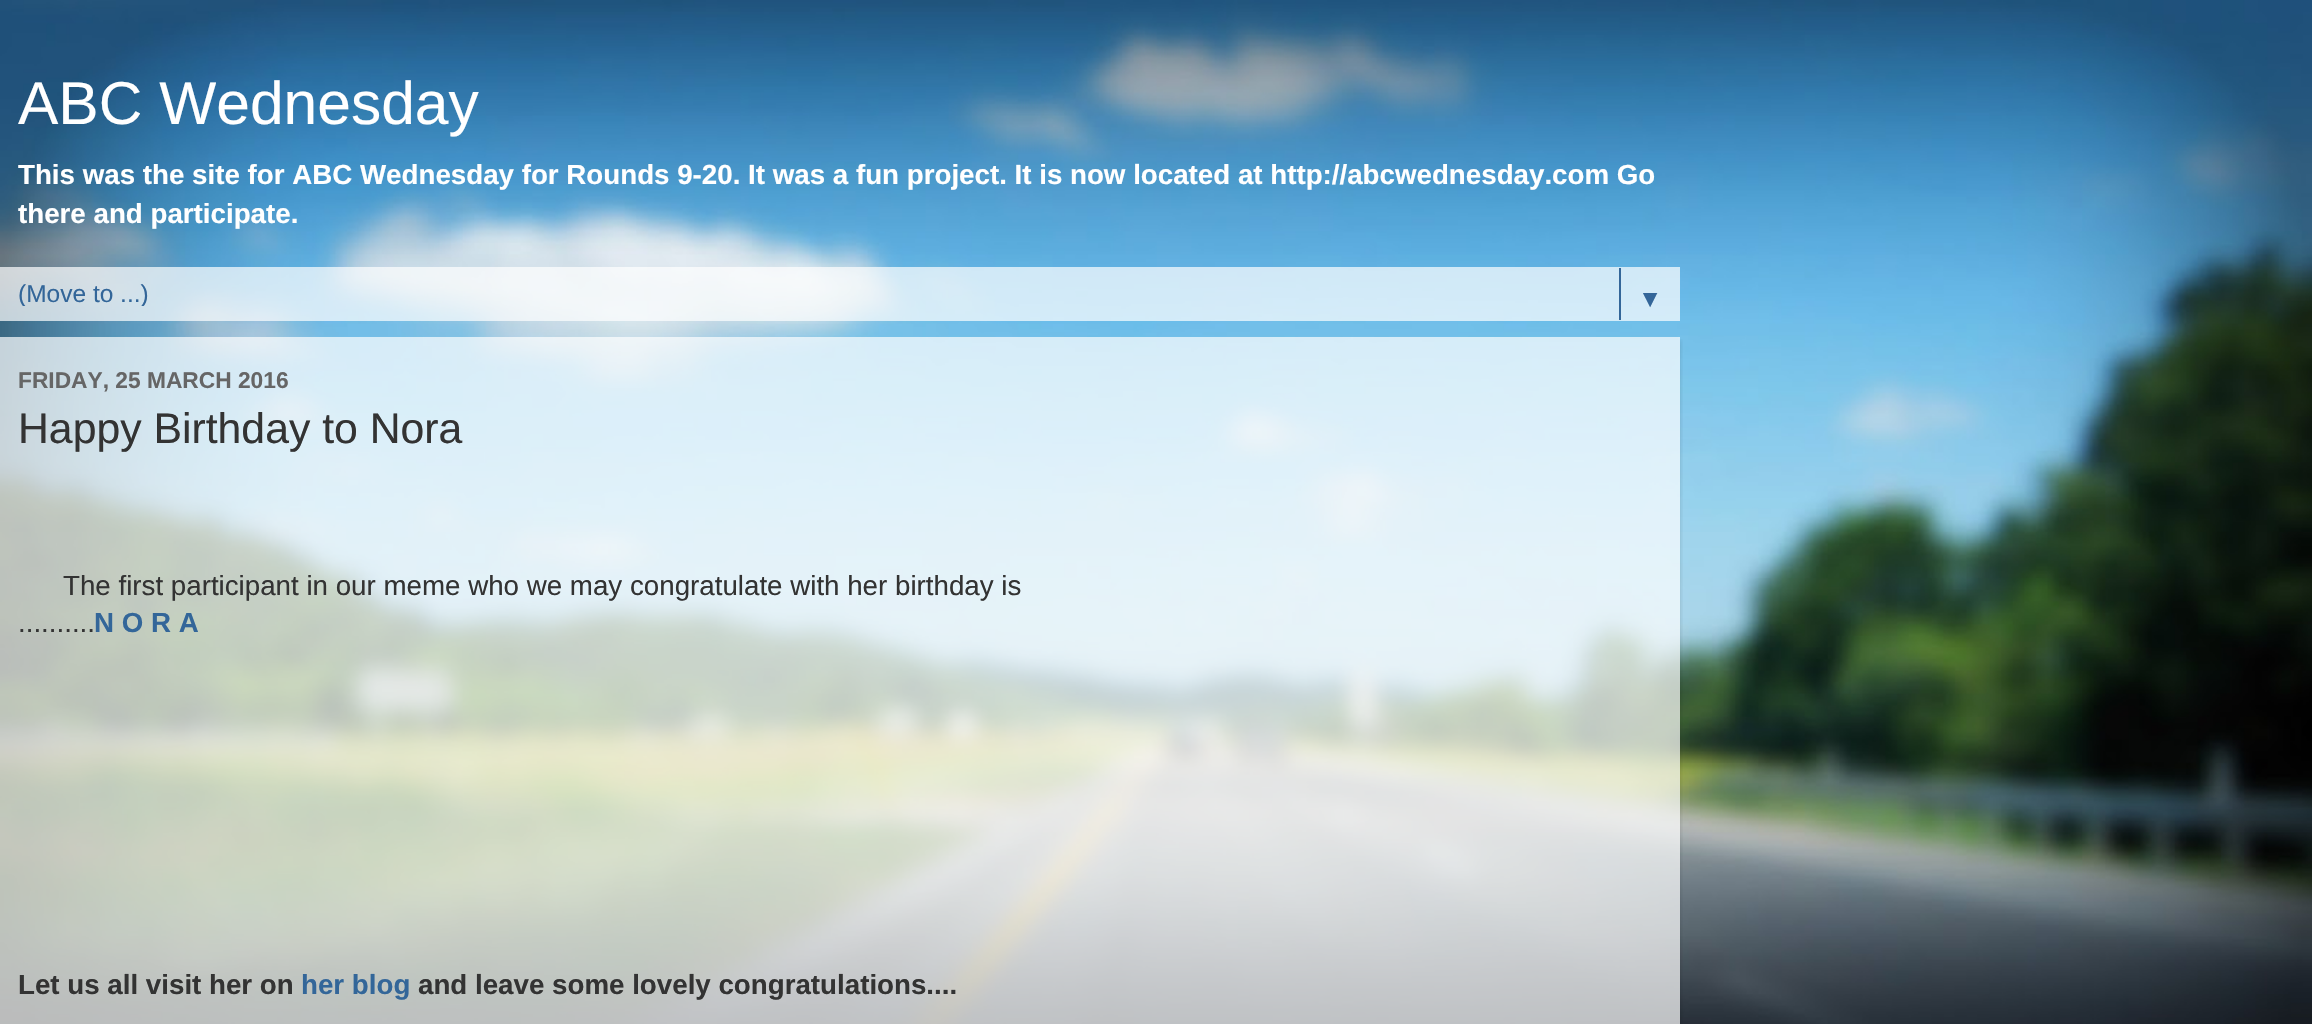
void draw(SkCanvas* canvas) {
  SkPaint paint;
  paint.setAntiAlias(true);
  auto face = [&](const char* family, int weight, float size, bool italic = false) {
    SkFontStyle style(weight, SkFontStyle::kNormal_Width,
      italic ? SkFontStyle::kItalic_Slant : SkFontStyle::kUpright_Slant);
    SkFont result(fontMgr->matchFamilyStyle(family, style), size);
    result.setSubpixel(true);
    return result;
  };
  auto paste = [&](const char* path, float x, float y, float w, float h) {
    auto image = SkImages::DeferredFromEncodedData(SkData::MakeFromFileName(path));
    canvas->drawImageRect(image, SkRect::MakeXYWH(x, y, w, h), SkSamplingOptions());
  };
  canvas->clear(0xffffffff);
  paste("img/1.png", 0, 0, 2312, 1024);
  paint.setColor(0xb3ffffff);
  canvas->drawRect(SkRect::MakeXYWH(0, 267, 1680, 54), paint);
  paint.setColor(0xff336699);
  canvas->drawRect(SkRect::MakeXYWH(1619, 268, 2, 52), paint);
  canvas->save();
  canvas->clipRect(SkRect::MakeXYWH(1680, 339, 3, 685));
  paint.setColor(0x26000000);
  paint.setMaskFilter(SkMaskFilter::MakeBlur(kNormal_SkBlurStyle, 2.5f));
  canvas->drawRect(SkRect::MakeXYWH(0, 340, 1680, 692), paint);
  paint.setMaskFilter(nullptr);
  canvas->restore();
  paint.setColor(0xb3ffffff);
  canvas->drawRect(SkRect::MakeXYWH(0, 337, 1680, 687), paint);
  auto f0 = face("Liberation Sans", 400, 60.5f);
  paint.setColor(0xffffffff);
  canvas->drawString("ABC Wednesday", 18, 124, f0, paint);
  auto f1 = face("Liberation Sans", 700, 27.72f);
  canvas->drawString("This was the site for ABC Wednesday for Rounds 9-20. It was a fun project. It is now located at http://abcwednesday.com Go", 18, 184, f1, paint);
  canvas->drawString("there and participate.", 18, 223, f1, paint);
  canvas->save();
  canvas->clipRect(SkRect::MakeXYWH(18, 278, 1645, 28));
  auto f2 = face("Liberation Sans", 400, 24.5f);
  paint.setColor(0xff336699);
  canvas->drawString("(Move to ...)", 18, 302, f2, paint);
  canvas->restore();
  canvas->drawString("▼", 1638, 307, f2, paint);
  auto f3 = face("Liberation Sans", 700, 22.75f);
  paint.setColor(0xff666666);
  canvas->drawString("FRIDAY, 25 MARCH 2016", 18, 388, f3, paint);
  auto f4 = face("Liberation Sans", 400, 42.75f);
  paint.setColor(0xff333333);
  canvas->drawString("Happy Birthday to Nora", 18, 443, f4, paint);
  auto f5 = face("Liberation Sans", 400, 27.72f);
  canvas->drawString("The first participant in our meme who we may congratulate with her birthday is", 63, 595, f5, paint);
  canvas->drawString("..........", 18, 632, f5, paint);
  paint.setColor(0xff336699);
  canvas->drawString("N O R A", 94, 632, f1, paint);
  paint.setColor(0xff333333);
  canvas->drawString("Let us all visit her on", 18, 994, f1, paint);
  paint.setColor(0xff336699);
  canvas->drawString("her blog", 301, 994, f1, paint);
  paint.setColor(0xff333333);
  canvas->drawString("and leave some lovely congratulations....", 418, 994, f1, paint);
}
